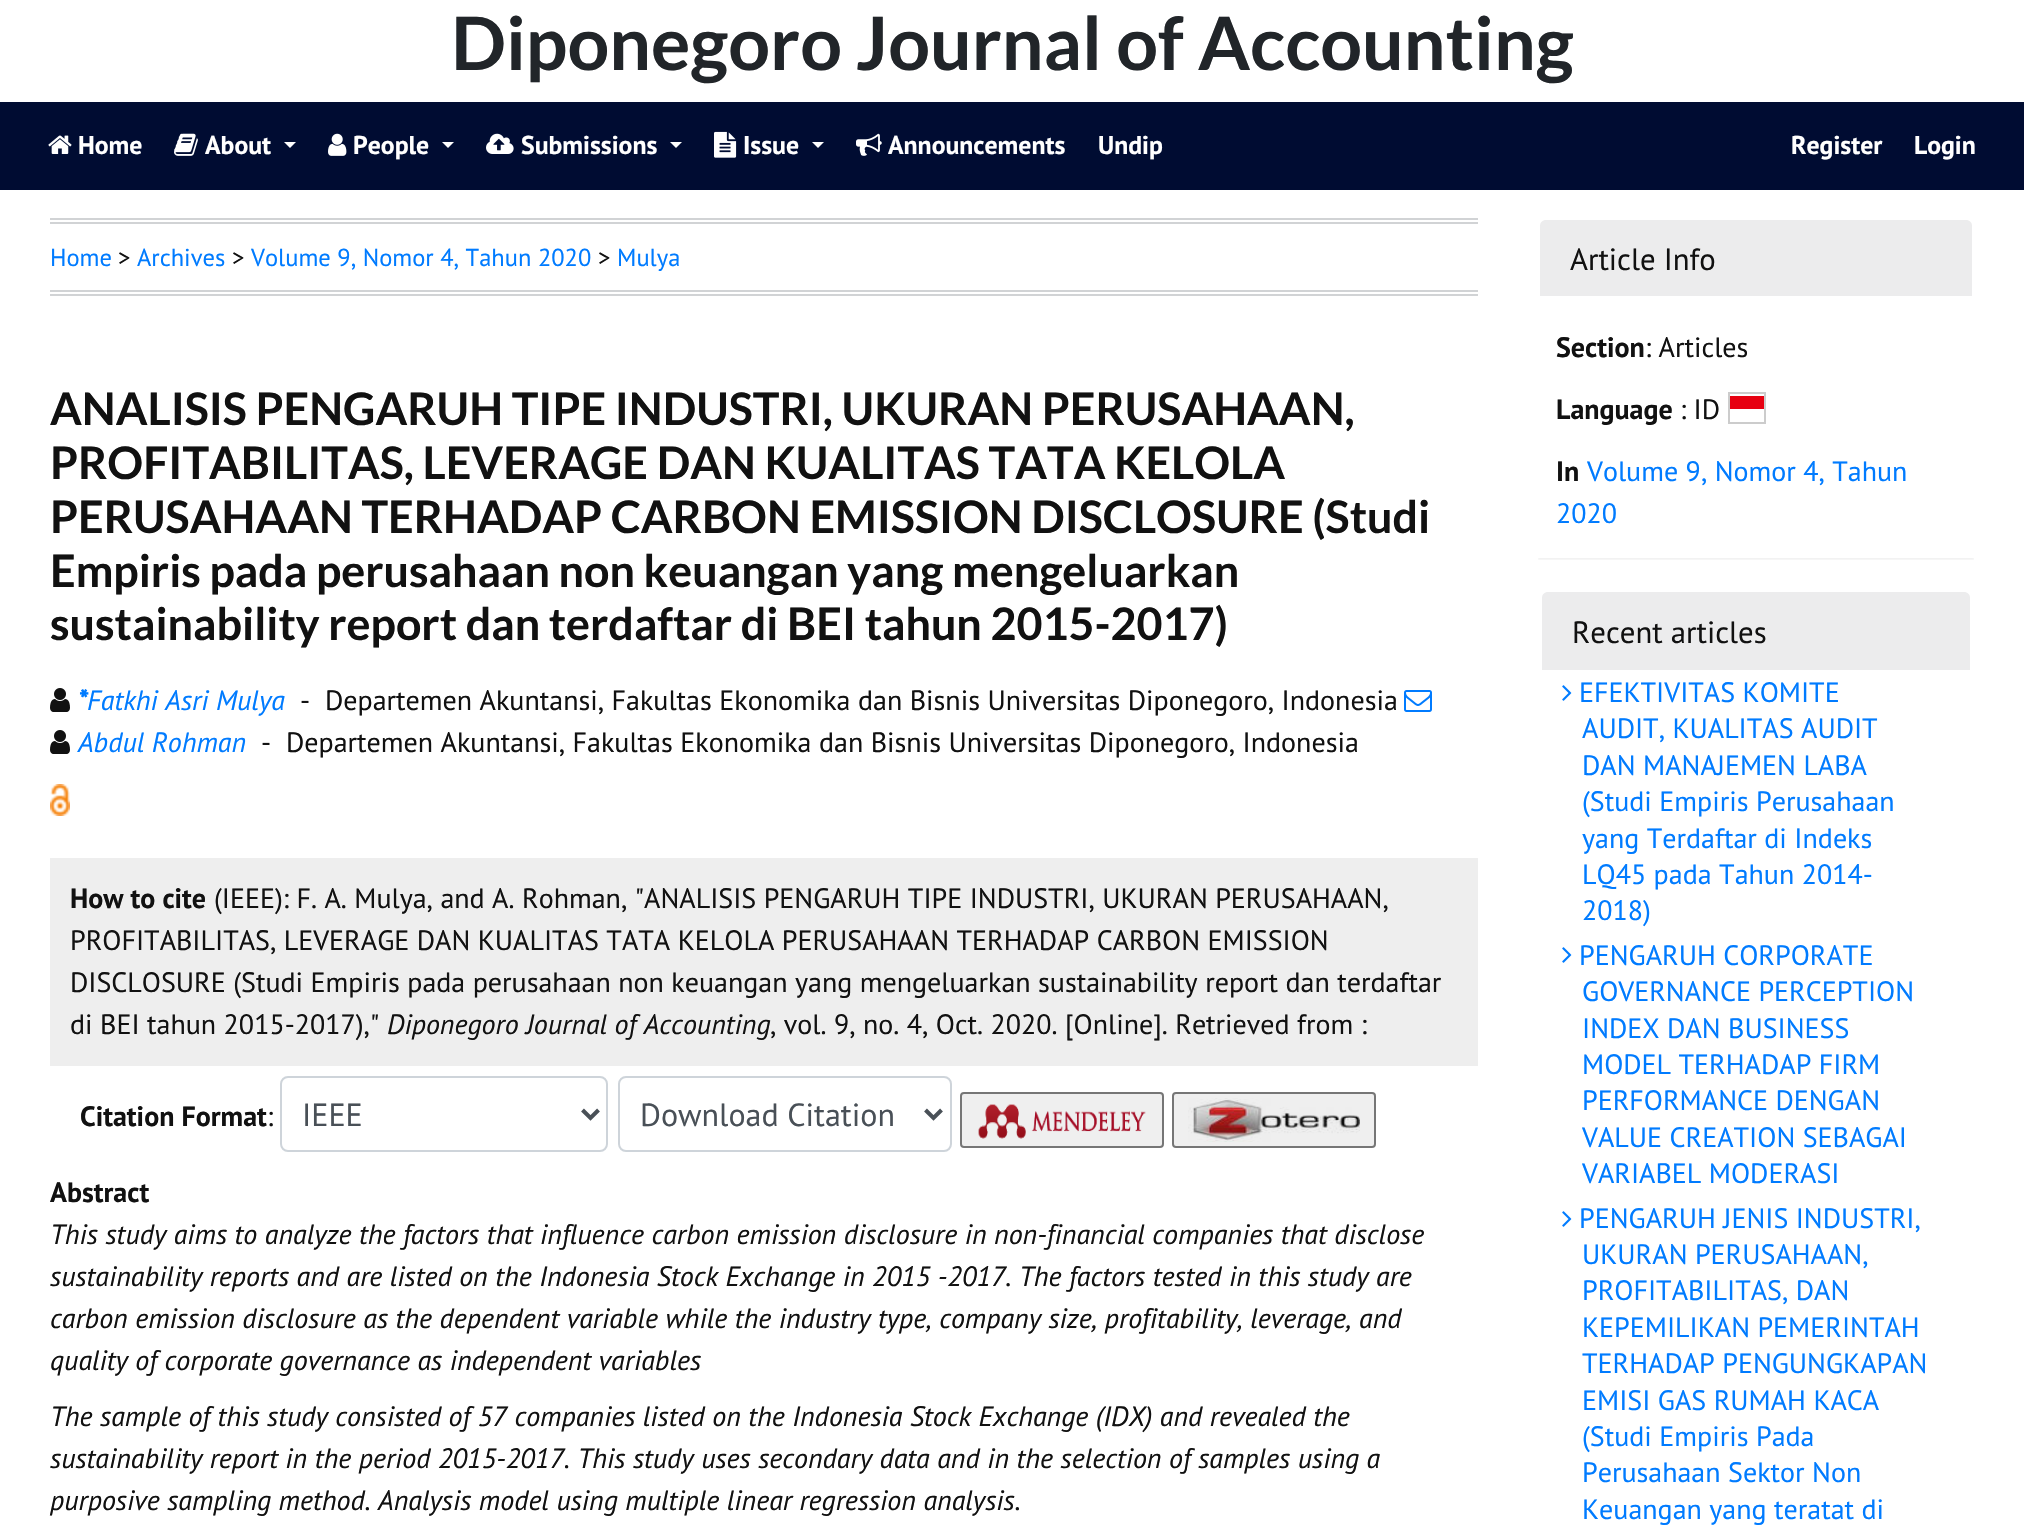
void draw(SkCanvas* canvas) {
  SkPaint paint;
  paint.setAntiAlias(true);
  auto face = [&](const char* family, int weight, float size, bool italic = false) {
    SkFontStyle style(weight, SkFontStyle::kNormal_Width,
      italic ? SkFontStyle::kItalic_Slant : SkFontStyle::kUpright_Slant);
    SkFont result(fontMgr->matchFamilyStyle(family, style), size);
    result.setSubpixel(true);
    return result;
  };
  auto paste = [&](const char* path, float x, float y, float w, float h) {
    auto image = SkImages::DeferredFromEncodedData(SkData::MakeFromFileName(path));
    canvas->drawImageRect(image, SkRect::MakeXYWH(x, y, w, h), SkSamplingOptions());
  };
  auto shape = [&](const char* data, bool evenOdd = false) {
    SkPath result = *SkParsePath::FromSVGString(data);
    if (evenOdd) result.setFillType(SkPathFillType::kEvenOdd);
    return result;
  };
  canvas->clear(0xffffffff);
  paint.setColor(0xff000c32);
  canvas->drawRect(SkRect::MakeXYWH(0, 102, 2024, 88), paint);
  paste("img/1.png", 48, 135, 24, 19);
  paste("img/2.png", 174, 133, 24, 23);
  paint.setColor(0xffffffff);
  canvas->drawPath(shape("M284 142H296L290 148Z"), paint);
  paste("img/3.png", 328, 133, 19, 23);
  canvas->drawPath(shape("M442 142H454L448 148Z"), paint);
  paste("img/4.png", 486, 133, 28, 21);
  canvas->drawPath(shape("M670 142H682L676 148Z"), paint);
  paste("img/5.png", 714, 131, 23, 27);
  canvas->drawPath(shape("M812 142H824L818 148Z"), paint);
  paste("img/6.png", 856, 133, 26, 23);
  {
    const struct { float x, y, w, h; SkColor color; } items[] = {
      {50, 218, 1428, 2, 0xffd1d3d5},
      {50, 222, 1428, 2, 0xffd1d3d5},
      {50, 290, 1428, 2, 0xffd1d3d5},
      {50, 294, 1428, 2, 0xffd1d3d5},
    };
    for (auto [x, y, w, h, color] : items) {
      paint.setColor(color);
      canvas->drawRect(SkRect::MakeXYWH(x, y, w, h), paint);
    }
  }
  paste("img/7.png", 50, 688, 20, 24);
  paste("img/8.png", 1404, 690, 28, 22);
  paste("img/7.png", 50, 730, 20, 24);
  paste("img/9.png", 50, 784, 20, 32);
  paint.setColor(0xffeeeeee);
  canvas->drawRect(SkRect::MakeXYWH(50, 858, 1428, 208), paint);
  paint.setStroke(true);
  paint.setStrokeWidth(2);
  paint.setColor(0xffced4da);
  canvas->drawRoundRect(SkRect::MakeXYWH(281, 1077, 326, 74), 7, 7, paint);
  paint.setStrokeWidth(4);
  paint.setColor(0xff495057);
  canvas->drawPath(shape("M582.5 1110L590.5 1118L598.5 1110"), paint);
  paint.setStrokeWidth(2);
  paint.setColor(0xffced4da);
  canvas->drawRoundRect(SkRect::MakeXYWH(619, 1077, 332, 74), 7, 7, paint);
  paint.setStrokeWidth(4);
  paint.setColor(0xff495057);
  canvas->drawPath(shape("M925.5 1110L933.5 1118L941.5 1110"), paint);
  paint.setStroke(false);
  paint.setColor(0xffefefef);
  canvas->drawRoundRect(SkRect::MakeXYWH(961, 1093, 202, 54), 3, 3, paint);
  paint.setStroke(true);
  paint.setStrokeWidth(2);
  paint.setColor(0xff767676);
  canvas->drawRoundRect(SkRect::MakeXYWH(961, 1093, 202, 54), 3, 3, paint);
  paste("img/10.png", 978, 1104, 168, 35);
  paint.setStroke(false);
  paint.setColor(0xffefefef);
  canvas->drawRoundRect(SkRect::MakeXYWH(1173, 1093, 202, 54), 3, 3, paint);
  paint.setStroke(true);
  paint.setColor(0xff767676);
  canvas->drawRoundRect(SkRect::MakeXYWH(1173, 1093, 202, 54), 3, 3, paint);
  paste("img/11.png", 1188, 1098, 172, 44);
  canvas->save();
  canvas->clipRect(SkRect::MakeXYWH(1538, 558, 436, 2));
  paint.setStroke(false);
  paint.setColor(0x0d000000);
  paint.setMaskFilter(SkMaskFilter::MakeBlur(kNormal_SkBlurStyle, 1));
  canvas->drawRect(SkRect::MakeXYWH(1538, 220, 436, 340), paint);
  paint.setMaskFilter(nullptr);
  canvas->restore();
  paint.setColor(0xffececed);
  canvas->drawPath(shape("M1546 220H1966C1969.5 220 1972 222.5 1972 226V296H1540V226C1540 222.5 1542.5 220 1546 220Z"), paint);
  paint.setColor(0xffe70011);
  canvas->drawRect(SkRect::MakeXYWH(1730, 396, 34, 13), paint);
  paint.setStroke(true);
  paint.setColor(0xffcccccc);
  canvas->drawRect(SkRect::MakeXYWH(1729, 393, 36, 30), paint);
  paint.setStroke(false);
  paint.setColor(0xffececed);
  canvas->drawPath(shape("M1548 592H1964C1967.5 592 1970 594.5 1970 598V670H1542V598C1542 594.5 1544.5 592 1548 592Z"), paint);
  paste("img/12.png", 1562, 685, 10, 16);
  paste("img/12.png", 1562, 947, 10, 16);
  paste("img/12.png", 1562, 1211, 10, 16);
  auto f0 = face("Lato", 700, 73.5f);
  paint.setColor(0xff212529);
  canvas->drawString("Diponegoro Journal of Accounting", 451, 70, f0, paint);
  auto f1 = face("PT Sans", 700, 25.75f);
  paint.setColor(0xffffffff);
  {
    const struct { const char* s; float x, y; } items[] = {
      {"Home", 78, 154},
      {"About", 205, 154},
      {"People", 353, 154},
      {"Submissions", 521, 154},
      {"Issue", 743, 154},
      {"Announcements", 888, 154},
      {"Undip", 1098, 154},
      {"Register", 1791, 154},
      {"Login", 1914, 154},
    };
    for (auto [s, x, y] : items) {
      canvas->drawString(s, x, y, f1, paint);
    }
  }
  auto f2 = face("PT Sans", 400, 24.5f);
  paint.setColor(0xff007bff);
  canvas->drawString("Home", 50, 266, f2, paint);
  paint.setColor(0xff111111);
  canvas->drawString(">", 118, 266, f2, paint);
  paint.setColor(0xff007bff);
  canvas->drawString("Archives", 137, 266, f2, paint);
  paint.setColor(0xff111111);
  canvas->drawString(">", 232, 266, f2, paint);
  paint.setColor(0xff007bff);
  canvas->drawString("Volume 9, Nomor 4, Tahun 2020", 251, 266, f2, paint);
  paint.setColor(0xff111111);
  canvas->drawString(">", 598, 266, f2, paint);
  paint.setColor(0xff007bff);
  canvas->drawString("Mulya", 617, 266, f2, paint);
  auto f3 = face("Lato", 700, 44.8f);
  paint.setColor(0xff111111);
  {
    const struct { const char* s; float x, y; } items[] = {
      {"ANALISIS PENGARUH TIPE INDUSTRI, UKURAN PERUSAHAAN,", 50, 425},
      {"PROFITABILITAS, LEVERAGE DAN KUALITAS TATA KELOLA", 50, 479},
      {"PERUSAHAAN TERHADAP CARBON EMISSION DISCLOSURE (Studi", 50, 533},
      {"Empiris pada perusahaan non keuangan yang mengeluarkan", 50, 587},
      {"sustainability report dan terdaftar di BEI tahun 2015-2017)", 50, 640},
    };
    for (auto [s, x, y] : items) {
      canvas->drawString(s, x, y, f3, paint);
    }
  }
  auto f4 = face("PT Sans", 700, 28, true);
  paint.setColor(0xff007bff);
  canvas->drawString("*", 78, 710, f4, paint);
  auto f5 = face("PT Sans", 400, 28, true);
  canvas->drawString("Fatkhi Asri Mulya", 87, 710, f5, paint);
  auto f6 = face("PT Sans", 400, 28);
  paint.setColor(0xff111111);
  canvas->drawString("-", 300, 710, f6, paint);
  canvas->drawString("Departemen Akuntansi, Fakultas Ekonomika dan Bisnis Universitas Diponegoro, Indonesia", 325, 710, f6, paint);
  paint.setColor(0xff007bff);
  canvas->drawString("Abdul Rohman", 78, 752, f5, paint);
  paint.setColor(0xff111111);
  canvas->drawString("-", 261, 752, f6, paint);
  canvas->drawString("Departemen Akuntansi, Fakultas Ekonomika dan Bisnis Universitas Diponegoro, Indonesia", 286, 752, f6, paint);
  auto f7 = face("PT Sans", 700, 28);
  canvas->drawString("How to cite", 70, 908, f7, paint);
  {
    const struct { const char* s; float x, y; } items[] = {
      {"(IEEE): F. A. Mulya, and A. Rohman, \"ANALISIS PENGARUH TIPE INDUSTRI, UKURAN PERUSAHAAN,", 214, 908},
      {"PROFITABILITAS, LEVERAGE DAN KUALITAS TATA KELOLA PERUSAHAAN TERHADAP CARBON EMISSION", 70, 950},
      {"DISCLOSURE (Studi Empiris pada perusahaan non keuangan yang mengeluarkan sustainability report dan terdaftar", 70, 992},
      {"di BEI tahun 2015-2017),\"", 70, 1034},
    };
    for (auto [s, x, y] : items) {
      canvas->drawString(s, x, y, f6, paint);
    }
  }
  canvas->drawString("Diponegoro Journal of Accounting", 387, 1034, f5, paint);
  canvas->drawString(", vol. 9, no. 4, Oct. 2020. [Online]. Retrieved from :", 770, 1034, f6, paint);
  canvas->drawString("Citation Format", 80, 1126, f7, paint);
  canvas->drawString(":", 267, 1126, f6, paint);
  auto f8 = face("PT Sans", 400, 32);
  paint.setColor(0xff495057);
  canvas->drawString("IEEE", 302, 1126, f8, paint);
  canvas->drawString("Download Citation", 640, 1126, f8, paint);
  paint.setColor(0xff111111);
  canvas->drawString("Abstract", 50, 1202, f7, paint);
  {
    const struct { const char* s; float x, y; } items[] = {
      {"This study aims to analyze the factors that influence carbon emission disclosure in non-financial companies that disclose", 50, 1244},
      {"sustainability reports and are listed on the Indonesia Stock Exchange in 2015 -2017. The factors tested in this study are", 50, 1286},
      {"carbon emission disclosure as the dependent variable while the industry type, company size, profitability, leverage, and", 50, 1328},
      {"quality of corporate governance as independent variables", 50, 1370},
      {"The sample of this study consisted of 57 companies listed on the Indonesia Stock Exchange (IDX) and revealed the", 50, 1426},
      {"sustainability report in the period 2015-2017. This study uses secondary data and in the selection of samples using a", 50, 1468},
      {"purposive sampling method. Analysis model using multiple linear regression analysis.", 50, 1510},
    };
    for (auto [s, x, y] : items) {
      canvas->drawString(s, x, y, f5, paint);
    }
  }
  auto f9 = face("PT Sans", 400, 30.75f);
  canvas->drawString("Article Info", 1570, 270, f9, paint);
  canvas->drawString("Section", 1556, 357, f7, paint);
  canvas->drawString(": Articles", 1645, 357, f6, paint);
  canvas->drawString("Language", 1556, 419, f7, paint);
  canvas->drawString(": ID", 1680, 419, f6, paint);
  canvas->drawString("In", 1556, 481, f7, paint);
  paint.setColor(0xff007bff);
  canvas->drawString("Volume 9, Nomor 4, Tahun", 1587, 481, f6, paint);
  canvas->drawString("2020", 1556, 523, f6, paint);
  paint.setColor(0xff111111);
  canvas->drawString("Recent articles", 1572, 643, f9, paint);
  paint.setColor(0xff007bff);
  {
    const struct { const char* s; float x, y; } items[] = {
      {"EFEKTIVITAS KOMITE", 1579, 702},
      {"AUDIT, KUALITAS AUDIT", 1582, 738},
      {"DAN MANAJEMEN LABA", 1582, 775},
      {"(Studi Empiris Perusahaan", 1582, 811},
      {"yang Terdaftar di Indeks", 1582, 848},
      {"LQ45 pada Tahun 2014-", 1582, 884},
      {"2018)", 1582, 920},
      {"PENGARUH CORPORATE", 1579, 965},
      {"GOVERNANCE PERCEPTION", 1582, 1001},
      {"INDEX DAN BUSINESS", 1582, 1038},
      {"MODEL TERHADAP FIRM", 1582, 1074},
      {"PERFORMANCE DENGAN", 1582, 1110},
      {"VALUE CREATION SEBAGAI", 1582, 1147},
      {"VARIABEL MODERASI", 1582, 1183},
      {"PENGARUH JENIS INDUSTRI,", 1579, 1228},
      {"UKURAN PERUSAHAAN,", 1582, 1264},
      {"PROFITABILITAS, DAN", 1582, 1300},
      {"KEPEMILIKAN PEMERINTAH", 1582, 1337},
      {"TERHADAP PENGUNGKAPAN", 1582, 1373},
      {"EMISI GAS RUMAH KACA", 1582, 1410},
      {"(Studi Empiris Pada", 1582, 1446},
      {"Perusahaan Sektor Non", 1582, 1482},
      {"Keuangan yang teratat di", 1582, 1519},
    };
    for (auto [s, x, y] : items) {
      canvas->drawString(s, x, y, f6, paint);
    }
  }
}
